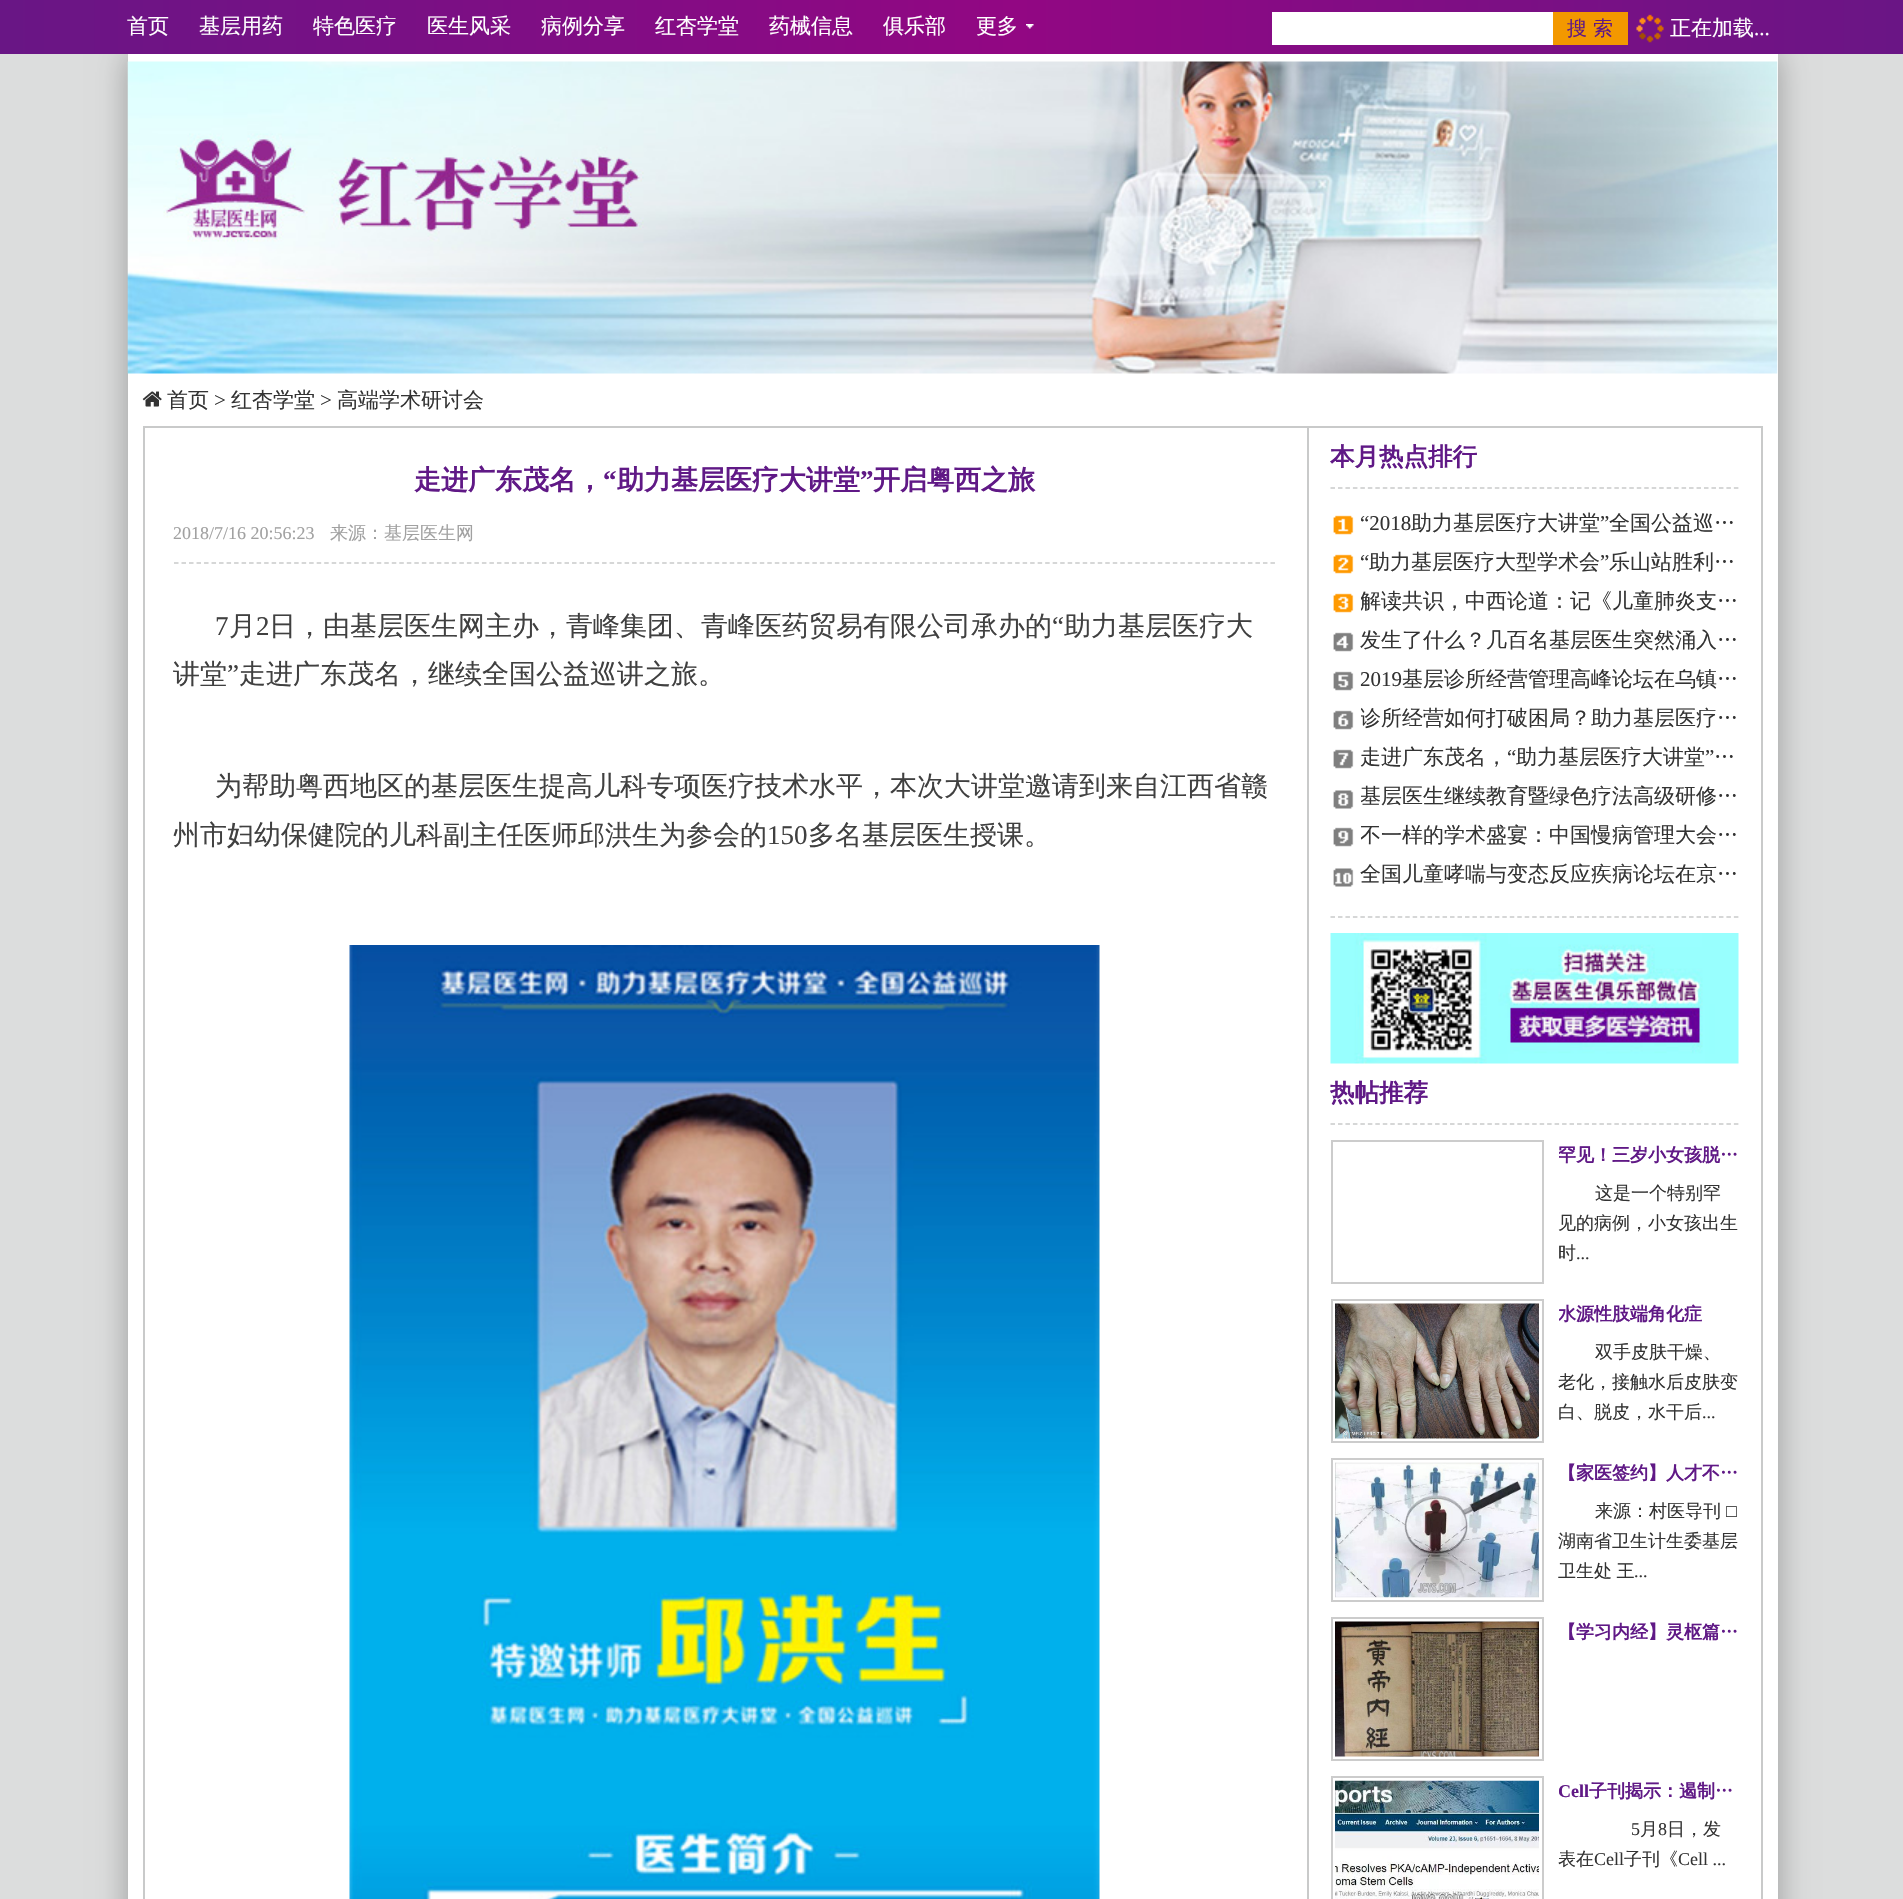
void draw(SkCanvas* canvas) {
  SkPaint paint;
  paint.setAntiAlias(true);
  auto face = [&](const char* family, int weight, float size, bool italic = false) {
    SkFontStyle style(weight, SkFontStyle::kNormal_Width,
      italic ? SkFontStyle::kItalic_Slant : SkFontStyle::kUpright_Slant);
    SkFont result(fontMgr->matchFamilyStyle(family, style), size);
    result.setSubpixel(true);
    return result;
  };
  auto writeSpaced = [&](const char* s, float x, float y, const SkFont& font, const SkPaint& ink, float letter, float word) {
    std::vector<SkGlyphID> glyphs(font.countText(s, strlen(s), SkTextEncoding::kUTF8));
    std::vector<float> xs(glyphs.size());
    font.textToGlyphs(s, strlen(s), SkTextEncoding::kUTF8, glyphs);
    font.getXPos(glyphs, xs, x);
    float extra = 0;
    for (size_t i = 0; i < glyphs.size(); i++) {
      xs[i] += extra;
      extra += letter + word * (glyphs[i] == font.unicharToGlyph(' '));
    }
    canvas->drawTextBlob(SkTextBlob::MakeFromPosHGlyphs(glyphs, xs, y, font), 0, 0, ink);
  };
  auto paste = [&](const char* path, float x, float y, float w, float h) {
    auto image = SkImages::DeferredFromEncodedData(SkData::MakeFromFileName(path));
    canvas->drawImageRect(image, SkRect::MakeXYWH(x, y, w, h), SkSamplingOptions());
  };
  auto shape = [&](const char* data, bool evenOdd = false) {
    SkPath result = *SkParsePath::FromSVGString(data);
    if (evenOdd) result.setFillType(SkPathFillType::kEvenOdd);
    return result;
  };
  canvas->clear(0xffdcdddd);
  paint.setColor(0x4d000000);
  paint.setMaskFilter(SkMaskFilter::MakeBlur(kNormal_SkBlurStyle, 15));
  canvas->drawRect(SkRect::MakeXYWH(128, 54, 1650, 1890), paint);
  paint.setMaskFilter(nullptr);
  paste("img/1.png", 0, 0, 1903, 54);
  paste("img/2.png", 1026, 24, 8, 5);
  paint.setColor(0xffffffff);
  canvas->drawRect(SkRect::MakeXYWH(1272, 12, 281, 33), paint);
  paint.setColor(0xfff39800);
  canvas->drawRect(SkRect::MakeXYWH(1553, 12, 75, 33), paint);
  paste("img/3.png", 1636, 14, 28, 29);
  paint.setColor(0xffffffff);
  canvas->drawRect(SkRect::MakeXYWH(128, 54, 1650, 1845), paint);
  paste("img/4.png", 127, 61, 1651, 313);
  paste("img/5.png", 142, 391, 20, 16);
  paint.setStroke(true);
  paint.setStrokeWidth(2);
  paint.setColor(0xffc9caca);
  canvas->drawRect(SkRect::MakeXYWH(144, 427, 1618, 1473), paint);
  paint.setStroke(false);
  canvas->drawRect(SkRect::MakeXYWH(1307, 428, 2, 1471), paint);
  paint.setStroke(true);
  paint.setStrokeWidth(1.5f);
  paint.setPathEffect(SkDashPathEffect::Make({{4.5f, 3.01f}}, 0));
  canvas->drawPath(shape("M174 563H1276.5"), paint);
  paint.setPathEffect(nullptr);
  paste("img/6.png", 349, 945, 751, 954);
  paint.setPathEffect(SkDashPathEffect::Make({{4.5f, 2.97f}}, 0));
  canvas->drawPath(shape("M1330.5 488H1738.5"), paint);
  paint.setPathEffect(nullptr);
  paint.setPathEffect(SkDashPathEffect::Make({{4.5f, 2.97f}}, 0));
  canvas->drawPath(shape("M1330.5 917H1738.5"), paint);
  paint.setPathEffect(nullptr);
  paste("img/7.png", 1333, 515, 21, 372);
  paste("img/8.png", 1330, 933, 409, 131);
  paint.setPathEffect(SkDashPathEffect::Make({{4.5f, 2.97f}}, 0));
  canvas->drawPath(shape("M1330.5 1124H1738.5"), paint);
  paint.setPathEffect(nullptr);
  paint.setStrokeWidth(2);
  paint.setColor(0xffcccccc);
  canvas->drawRect(SkRect::MakeXYWH(1332, 1141, 211, 142), paint);
  canvas->drawRect(SkRect::MakeXYWH(1332, 1300, 211, 142), paint);
  paste("img/9.png", 1335, 1303, 204, 136);
  canvas->drawRect(SkRect::MakeXYWH(1332, 1459, 211, 142), paint);
  paste("img/10.png", 1335, 1462, 204, 136);
  canvas->drawRect(SkRect::MakeXYWH(1332, 1618, 211, 142), paint);
  paste("img/11.png", 1335, 1621, 204, 136);
  canvas->drawRect(SkRect::MakeXYWH(1332, 1777, 211, 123), paint);
  paste("img/12.png", 1335, 1780, 204, 119);
  auto f0 = face("WenQuanYi Zen Hei", 500, 21);
  paint.setStroke(false);
  paint.setColor(0xffffffff);
  {
    const struct { const char* s; float x, y; } items[] = {
      {"首页", 127, 33},
      {"基层用药", 199, 33},
      {"特色医疗", 313, 33},
      {"医生风采", 427, 33},
      {"病例分享", 541, 33},
      {"红杏学堂", 655, 33},
      {"药械信息", 769, 33},
      {"俱乐部", 883, 33},
      {"更多", 976, 33},
    };
    for (auto [s, x, y] : items) {
      canvas->drawString(s, x, y, f0, paint);
    }
  }
  auto f1 = face("WenQuanYi Zen Hei", 500, 20);
  paint.setColor(0xff601986);
  canvas->drawString("搜 索", 1567, 35, f1, paint);
  paint.setColor(0xffffffff);
  canvas->drawString("正在加载", 1670, 35, f0, paint);
  auto f2 = face("Liberation Serif", 400, 21);
  canvas->drawString("...", 1754, 35, f2, paint);
  paint.setColor(0xff333333);
  canvas->drawString("首页", 167, 407, f0, paint);
  canvas->drawString(">", 214, 407, f2, paint);
  canvas->drawString("红杏学堂", 231, 407, f0, paint);
  canvas->drawString(">", 320, 407, f2, paint);
  canvas->drawString("高端学术研讨会", 337, 407, f0, paint);
  auto f3 = face("WenQuanYi Zen Hei", 700, 27);
  paint.setColor(0xff601986);
  canvas->drawString("走进广东茂名，", 414, 489, f3, paint);
  auto f4 = face("Liberation Serif", 700, 27);
  canvas->drawString("“", 603, 489, f4, paint);
  canvas->drawString("助力基层医疗大讲堂", 617, 489, f3, paint);
  canvas->drawString("”", 860, 489, f4, paint);
  canvas->drawString("开启粤西之旅", 873, 489, f3, paint);
  auto f5 = face("Liberation Serif", 400, 18);
  paint.setColor(0xffa1a1a1);
  canvas->drawString("2018/7/16 20:56:23", 173, 539, f5, paint);
  auto f6 = face("WenQuanYi Zen Hei", 500, 18);
  canvas->drawString("来源：基层医生网", 330, 539, f6, paint);
  auto f7 = face("Liberation Serif", 400, 27);
  paint.setColor(0xff404040);
  canvas->drawString("7", 215, 635, f7, paint);
  auto f8 = face("WenQuanYi Zen Hei", 500, 27);
  canvas->drawString("月", 229, 635, f8, paint);
  canvas->drawString("2", 256, 635, f7, paint);
  canvas->drawString("日，由基层医生网主办，青峰集团、青峰医药贸易有限公司承办的", 269, 635, f8, paint);
  canvas->drawString("“", 1052, 635, f7, paint);
  canvas->drawString("助力基层医疗大", 1064, 635, f8, paint);
  canvas->drawString("讲堂", 173, 683, f8, paint);
  canvas->drawString("”", 227, 683, f7, paint);
  {
    const struct { const char* s; float x, y; } items[] = {
      {"走进广东茂名，继续全国公益巡讲之旅。", 239, 683},
      {"为帮助粤西地区的基层医生提高儿科专项医疗技术水平，本次大讲堂邀请到来自江西省赣", 215, 795},
      {"州市妇幼保健院的儿科副主任医师邱洪生为参会的", 173, 844},
    };
    for (auto [s, x, y] : items) {
      canvas->drawString(s, x, y, f8, paint);
    }
  }
  canvas->drawString("150", 767, 844, f7, paint);
  canvas->drawString("多名基层医生授课。", 808, 844, f8, paint);
  auto f9 = face("WenQuanYi Zen Hei", 700, 24.5f);
  paint.setColor(0xff601986);
  canvas->drawString("本月热点排行", 1330, 465, f9, paint);
  paint.setColor(0xff333333);
  canvas->drawString("“2018", 1360, 530, f2, paint);
  canvas->drawString("助力基层医疗大讲堂", 1411, 530, f0, paint);
  canvas->drawString("”", 1600, 530, f2, paint);
  canvas->drawString("全国公益巡…", 1609, 530, f0, paint);
  canvas->drawString("“", 1360, 569, f2, paint);
  canvas->drawString("助力基层医疗大型学术会", 1369, 569, f0, paint);
  canvas->drawString("”", 1600, 569, f2, paint);
  canvas->drawString("乐山站胜利…", 1609, 569, f0, paint);
  canvas->save();
  canvas->clipRect(SkRect::MakeXYWH(1361, 582, 378, 39));
  canvas->drawString("解读共识，中西论道：记《儿童肺炎支…", 1360, 608, f0, paint);
  canvas->restore();
  canvas->drawString("发生了什么？几百名基层医生突然涌入…", 1360, 647, f0, paint);
  canvas->drawString("2019", 1360, 686, f2, paint);
  canvas->drawString("基层诊所经营管理高峰论坛在乌镇…", 1402, 686, f0, paint);
  canvas->save();
  canvas->clipRect(SkRect::MakeXYWH(1361, 699, 378, 39));
  canvas->drawString("诊所经营如何打破困局？助力基层医疗…", 1360, 725, f0, paint);
  canvas->restore();
  canvas->drawString("走进广东茂名，", 1360, 764, f0, paint);
  canvas->drawString("“", 1507, 764, f2, paint);
  canvas->drawString("助力基层医疗大讲堂", 1516, 764, f0, paint);
  canvas->drawString("”", 1705, 764, f2, paint);
  canvas->drawString("…", 1714, 764, f0, paint);
  canvas->save();
  canvas->clipRect(SkRect::MakeXYWH(1361, 777, 378, 39));
  canvas->drawString("基层医生继续教育暨绿色疗法高级研修…", 1360, 803, f0, paint);
  canvas->restore();
  canvas->save();
  canvas->clipRect(SkRect::MakeXYWH(1361, 816, 378, 39));
  canvas->drawString("不一样的学术盛宴：中国慢病管理大会…", 1360, 842, f0, paint);
  canvas->restore();
  canvas->drawString("全国儿童哮喘与变态反应疾病论坛在京…", 1360, 881, f0, paint);
  paint.setColor(0xff601986);
  canvas->drawString("热帖推荐", 1330, 1101, f9, paint);
  canvas->save();
  canvas->clipRect(SkRect::MakeXYWH(1559, 1140, 180, 30));
  auto f10 = face("WenQuanYi Zen Hei", 700, 18);
  canvas->drawString("罕见！三岁小女孩脱…", 1558, 1161, f10, paint);
  canvas->restore();
  paint.setColor(0xff333333);
  {
    const struct { const char* s; float x, y; } items[] = {
      {"这是一个特别罕", 1595, 1199},
      {"见的病例，小女孩出生", 1558, 1229},
      {"时", 1558, 1259},
    };
    for (auto [s, x, y] : items) {
      canvas->drawString(s, x, y, f6, paint);
    }
  }
  canvas->drawString("...", 1576, 1259, f5, paint);
  canvas->save();
  canvas->clipRect(SkRect::MakeXYWH(1559, 1299, 180, 30));
  paint.setColor(0xff601986);
  canvas->drawString("水源性肢端角化症", 1558, 1320, f10, paint);
  canvas->restore();
  paint.setColor(0xff333333);
  {
    const struct { const char* s; float x, y; } items[] = {
      {"双手皮肤干燥、", 1595, 1358},
      {"老化，接触水后皮肤变", 1558, 1388},
      {"白、脱皮，水干后", 1558, 1418},
    };
    for (auto [s, x, y] : items) {
      canvas->drawString(s, x, y, f6, paint);
    }
  }
  canvas->drawString("...", 1702, 1418, f5, paint);
  paint.setColor(0xff601986);
  canvas->drawString("【家医签约】人才不…", 1558, 1479, f10, paint);
  paint.setColor(0xff333333);
  canvas->drawString("来源：村医导刊", 1595, 1517, f6, paint);
  canvas->drawString("□", 1726, 1517, f5, paint);
  canvas->drawString("湖南省卫生计生委基层", 1558, 1547, f6, paint);
  writeSpaced("卫生处 王", 1558, 1577, f6, paint, 0, -1);
  canvas->drawString("...", 1634, 1577, f5, paint);
  paint.setColor(0xff601986);
  canvas->drawString("【学习内经】灵枢篇…", 1558, 1638, f10, paint);
  canvas->save();
  canvas->clipRect(SkRect::MakeXYWH(1559, 1776, 180, 30));
  auto f11 = face("Liberation Serif", 700, 18);
  canvas->drawString("Cell", 1558, 1797, f11, paint);
  canvas->restore();
  canvas->drawString("子刊揭示：遏制…", 1589, 1797, f10, paint);
  paint.setColor(0xff333333);
  canvas->drawString("5", 1631, 1835, f5, paint);
  canvas->drawString("月", 1640, 1835, f6, paint);
  canvas->drawString("8", 1658, 1835, f5, paint);
  canvas->drawString("日，发", 1667, 1835, f6, paint);
  canvas->drawString("表在", 1558, 1865, f6, paint);
  canvas->drawString("Cell", 1594, 1865, f5, paint);
  canvas->drawString("子刊《", 1624, 1865, f6, paint);
  canvas->drawString("Cell ...", 1678, 1865, f5, paint);
}
